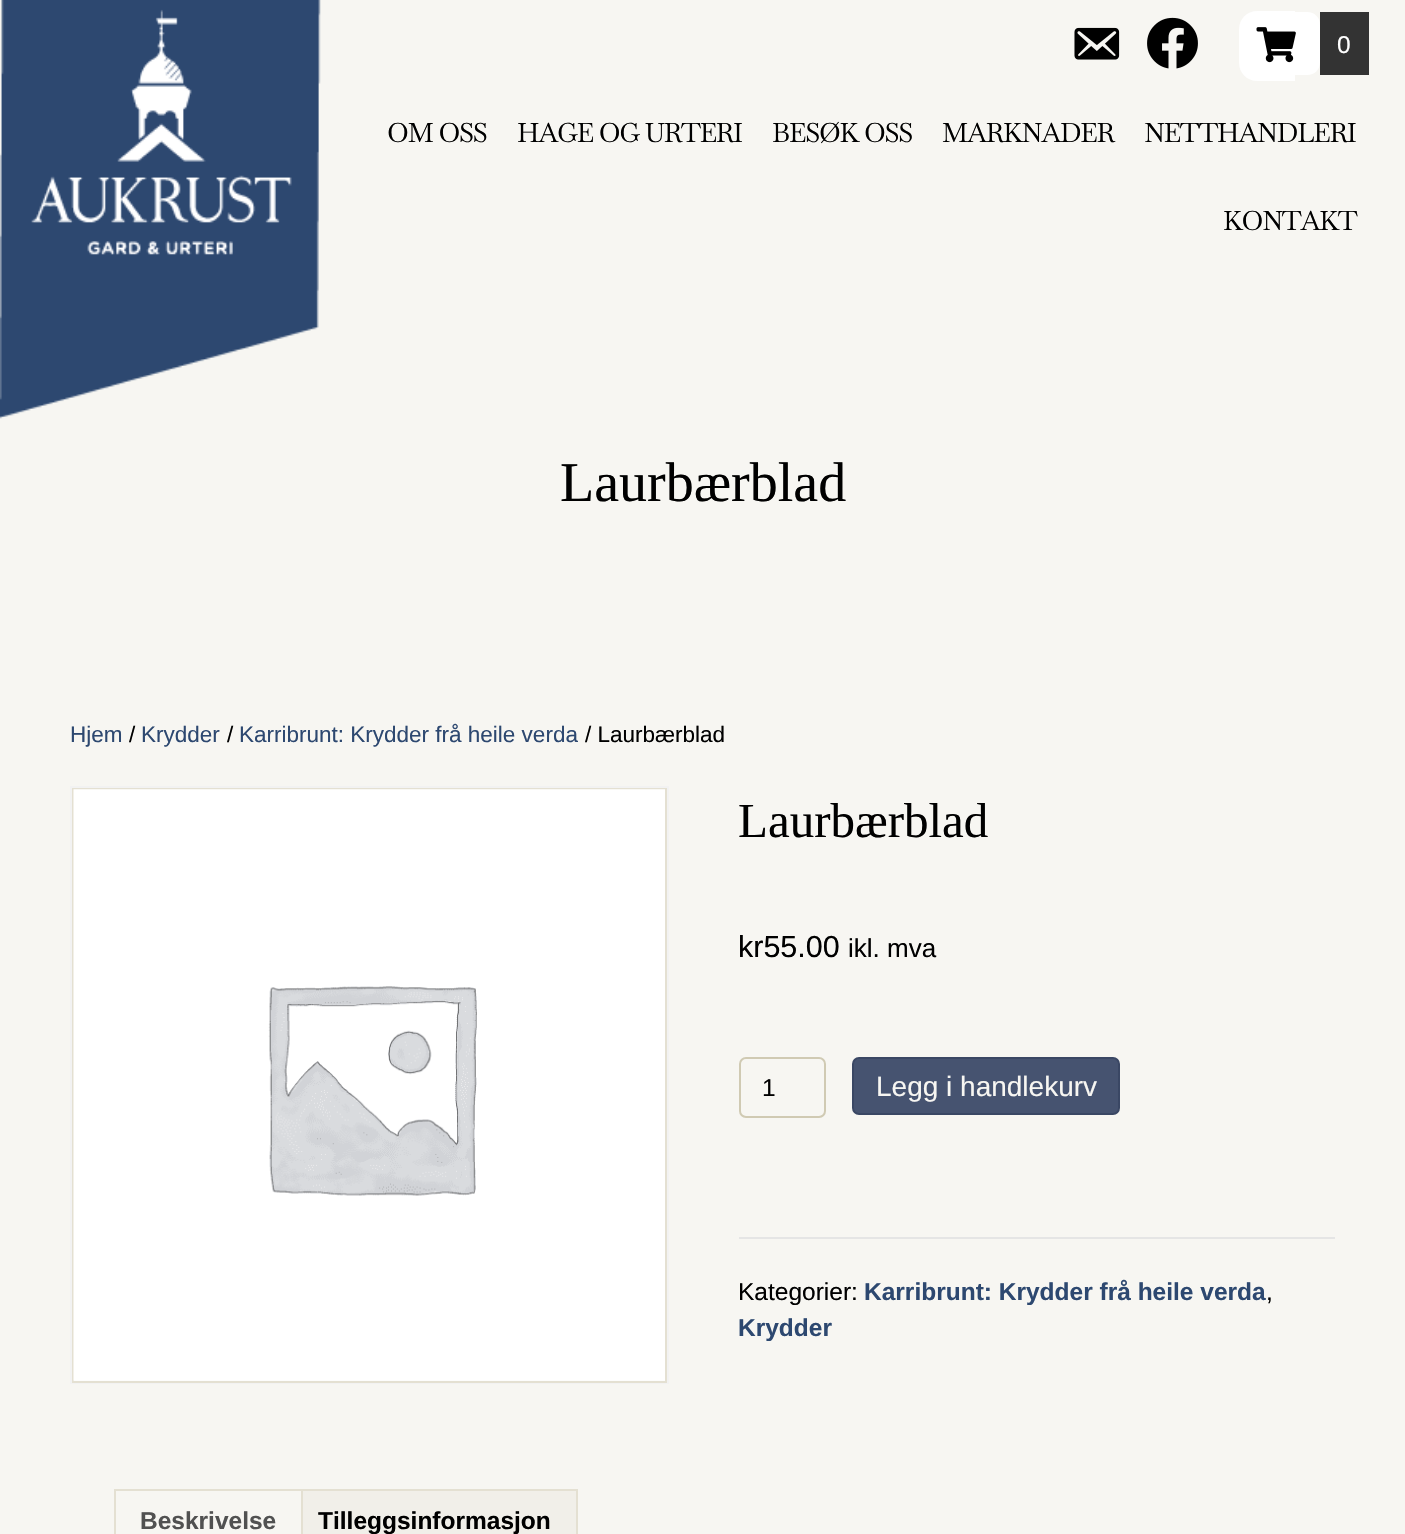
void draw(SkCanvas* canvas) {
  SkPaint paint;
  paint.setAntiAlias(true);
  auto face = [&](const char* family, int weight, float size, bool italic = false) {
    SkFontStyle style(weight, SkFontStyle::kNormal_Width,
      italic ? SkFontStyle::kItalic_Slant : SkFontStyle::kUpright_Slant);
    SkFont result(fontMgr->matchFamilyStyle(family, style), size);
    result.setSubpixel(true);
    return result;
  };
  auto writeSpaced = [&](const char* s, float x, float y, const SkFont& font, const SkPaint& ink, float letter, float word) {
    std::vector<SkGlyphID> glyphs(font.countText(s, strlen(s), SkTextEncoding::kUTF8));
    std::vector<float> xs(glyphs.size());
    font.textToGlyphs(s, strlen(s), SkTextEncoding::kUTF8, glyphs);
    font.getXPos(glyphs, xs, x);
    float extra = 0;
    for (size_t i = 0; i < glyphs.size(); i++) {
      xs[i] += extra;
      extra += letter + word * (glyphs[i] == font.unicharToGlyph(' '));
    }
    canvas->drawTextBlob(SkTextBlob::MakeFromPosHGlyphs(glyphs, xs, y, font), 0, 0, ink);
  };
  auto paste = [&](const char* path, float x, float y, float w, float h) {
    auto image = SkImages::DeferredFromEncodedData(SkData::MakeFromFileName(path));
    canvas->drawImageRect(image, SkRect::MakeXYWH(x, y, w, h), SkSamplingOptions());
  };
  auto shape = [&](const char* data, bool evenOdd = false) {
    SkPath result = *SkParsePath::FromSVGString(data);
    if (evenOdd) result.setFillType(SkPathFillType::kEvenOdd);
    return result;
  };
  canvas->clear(0xfff7f6f2);
  paste("img/1.png", 0, 0, 321, 419);
  paste("img/2.png", 1074, 27, 46, 33);
  paste("img/3.png", 1147, 17, 51, 52);
  paint.setColor(0xffffffff);
  canvas->drawPath(shape("M1257 11H1295V81H1257C1247 81 1239 73 1239 63V29C1239 19 1247 11 1257 11Z"), paint);
  canvas->drawPath(shape("M1295 12H1307.5C1314.5 12 1320 17.5 1320 24.5V62.5C1320 69.5 1314.5 75 1307.5 75H1295Z"), paint);
  paste("img/4.png", 1256, 27, 40, 36);
  paint.setColor(0xff333333);
  canvas->drawRect(SkRect::MakeXYWH(1320, 12, 49, 63), paint);
  paint.setStroke(true);
  paint.setStrokeWidth(2);
  paint.setColor(0xfff2f2f2);
  canvas->drawRect(SkRect::MakeXYWH(71, 787, 597, 596), paint);
  paint.setColor(0xffe4e0d2);
  canvas->drawRect(SkRect::MakeXYWH(73, 789, 593, 593), paint);
  paste("img/5.png", 73, 789, 592, 592);
  paint.setColor(0xffd0cab3);
  canvas->drawRoundRect(SkRect::MakeXYWH(740, 1058, 85, 59), 6, 6, paint);
  paint.setStroke(false);
  paint.setColor(0xff465370);
  canvas->drawRoundRect(SkRect::MakeXYWH(853, 1058, 266, 56), 6, 6, paint);
  paint.setStroke(true);
  paint.setColor(0xff3a4764);
  canvas->drawRoundRect(SkRect::MakeXYWH(853, 1058, 266, 56), 6, 6, paint);
  paint.setStroke(false);
  {
    const struct { float x, y, w, h; SkColor color; } items[] = {
      {739, 1237, 596, 2, 0xffe5e5e5},
      {114, 1489, 464, 2, 0xffe4e0d2},
      {301, 1489, 2, 45, 0xffe4e0d2},
      {114, 1489, 2, 45, 0xffe4e0d2},
      {303, 1491, 273, 43, 0xfff1efe9},
      {576, 1489, 2, 45, 0xffe4e0d2},
    };
    for (auto [x, y, w, h, color] : items) {
      paint.setColor(color);
      canvas->drawRect(SkRect::MakeXYWH(x, y, w, h), paint);
    }
  }
  auto f0 = face("Liberation Sans", 400, 24.5f);
  paint.setColor(0xffffffff);
  canvas->drawString("0", 1337, 53, f0, paint);
  auto f1 = face("Baskervville", 400, 26.75f);
  paint.setColor(0xff000000);
  {
    const struct { const char* s; float x, y; } items[] = {
      {"OM OSS", 387, 142},
      {"HAGE OG URTERI", 517, 142},
      {"BESØK OSS", 772, 142},
      {"MARKNADER", 942, 142},
      {"NETTHANDLERI", 1144, 142},
      {"KONTAKT", 1223, 230},
    };
    for (auto [s, x, y] : items) {
      writeSpaced(s, x, y, f1, paint, -1.25f, 0);
    }
  }
  auto f2 = face("Liberation Serif", 400, 56);
  canvas->drawString("Laurbærblad", 560, 501, f2, paint);
  auto f3 = face("Liberation Sans", 400, 22.5f);
  paint.setColor(0xff2d4870);
  canvas->drawString("Hjem", 70, 742, f3, paint);
  paint.setColor(0xff000000);
  canvas->drawString("/", 129, 742, f3, paint);
  paint.setColor(0xff2d4870);
  canvas->drawString("Krydder", 141, 742, f3, paint);
  paint.setColor(0xff000000);
  canvas->drawString("/", 227, 742, f3, paint);
  paint.setColor(0xff2d4870);
  canvas->drawString("Karribrunt: Krydder frå heile verda", 239, 742, f3, paint);
  paint.setColor(0xff000000);
  canvas->drawString("/ Laurbærblad", 585, 742, f3, paint);
  auto f4 = face("Liberation Serif", 400, 49);
  canvas->drawString("Laurbærblad", 738, 837, f4, paint);
  auto f5 = face("Liberation Sans", 400, 30.5f);
  canvas->drawString("kr55.00", 738, 957, f5, paint);
  auto f6 = face("Liberation Sans", 400, 26);
  canvas->drawString("ikl. mva", 848, 957, f6, paint);
  canvas->drawString("1", 762, 1096, f0, paint);
  auto f7 = face("Liberation Sans", 400, 28);
  paint.setColor(0xfff7f6f2);
  canvas->drawString("Legg i handlekurv", 876, 1096, f7, paint);
  paint.setColor(0xff000000);
  canvas->drawString("Kategorier:", 738, 1300, f0, paint);
  auto f8 = face("Liberation Sans", 700, 24.5f);
  paint.setColor(0xff2d4870);
  canvas->drawString("Karribrunt: Krydder frå heile verda", 864, 1300, f8, paint);
  paint.setColor(0xff000000);
  canvas->drawString(",", 1266, 1300, f0, paint);
  paint.setColor(0xff2d4870);
  canvas->drawString("Krydder", 738, 1336, f8, paint);
  paint.setColor(0xff515151);
  canvas->drawString("Beskrivelse", 140, 1529, f8, paint);
  paint.setColor(0xff000000);
  canvas->drawString("Tilleggsinformasjon", 318, 1529, f8, paint);
}
